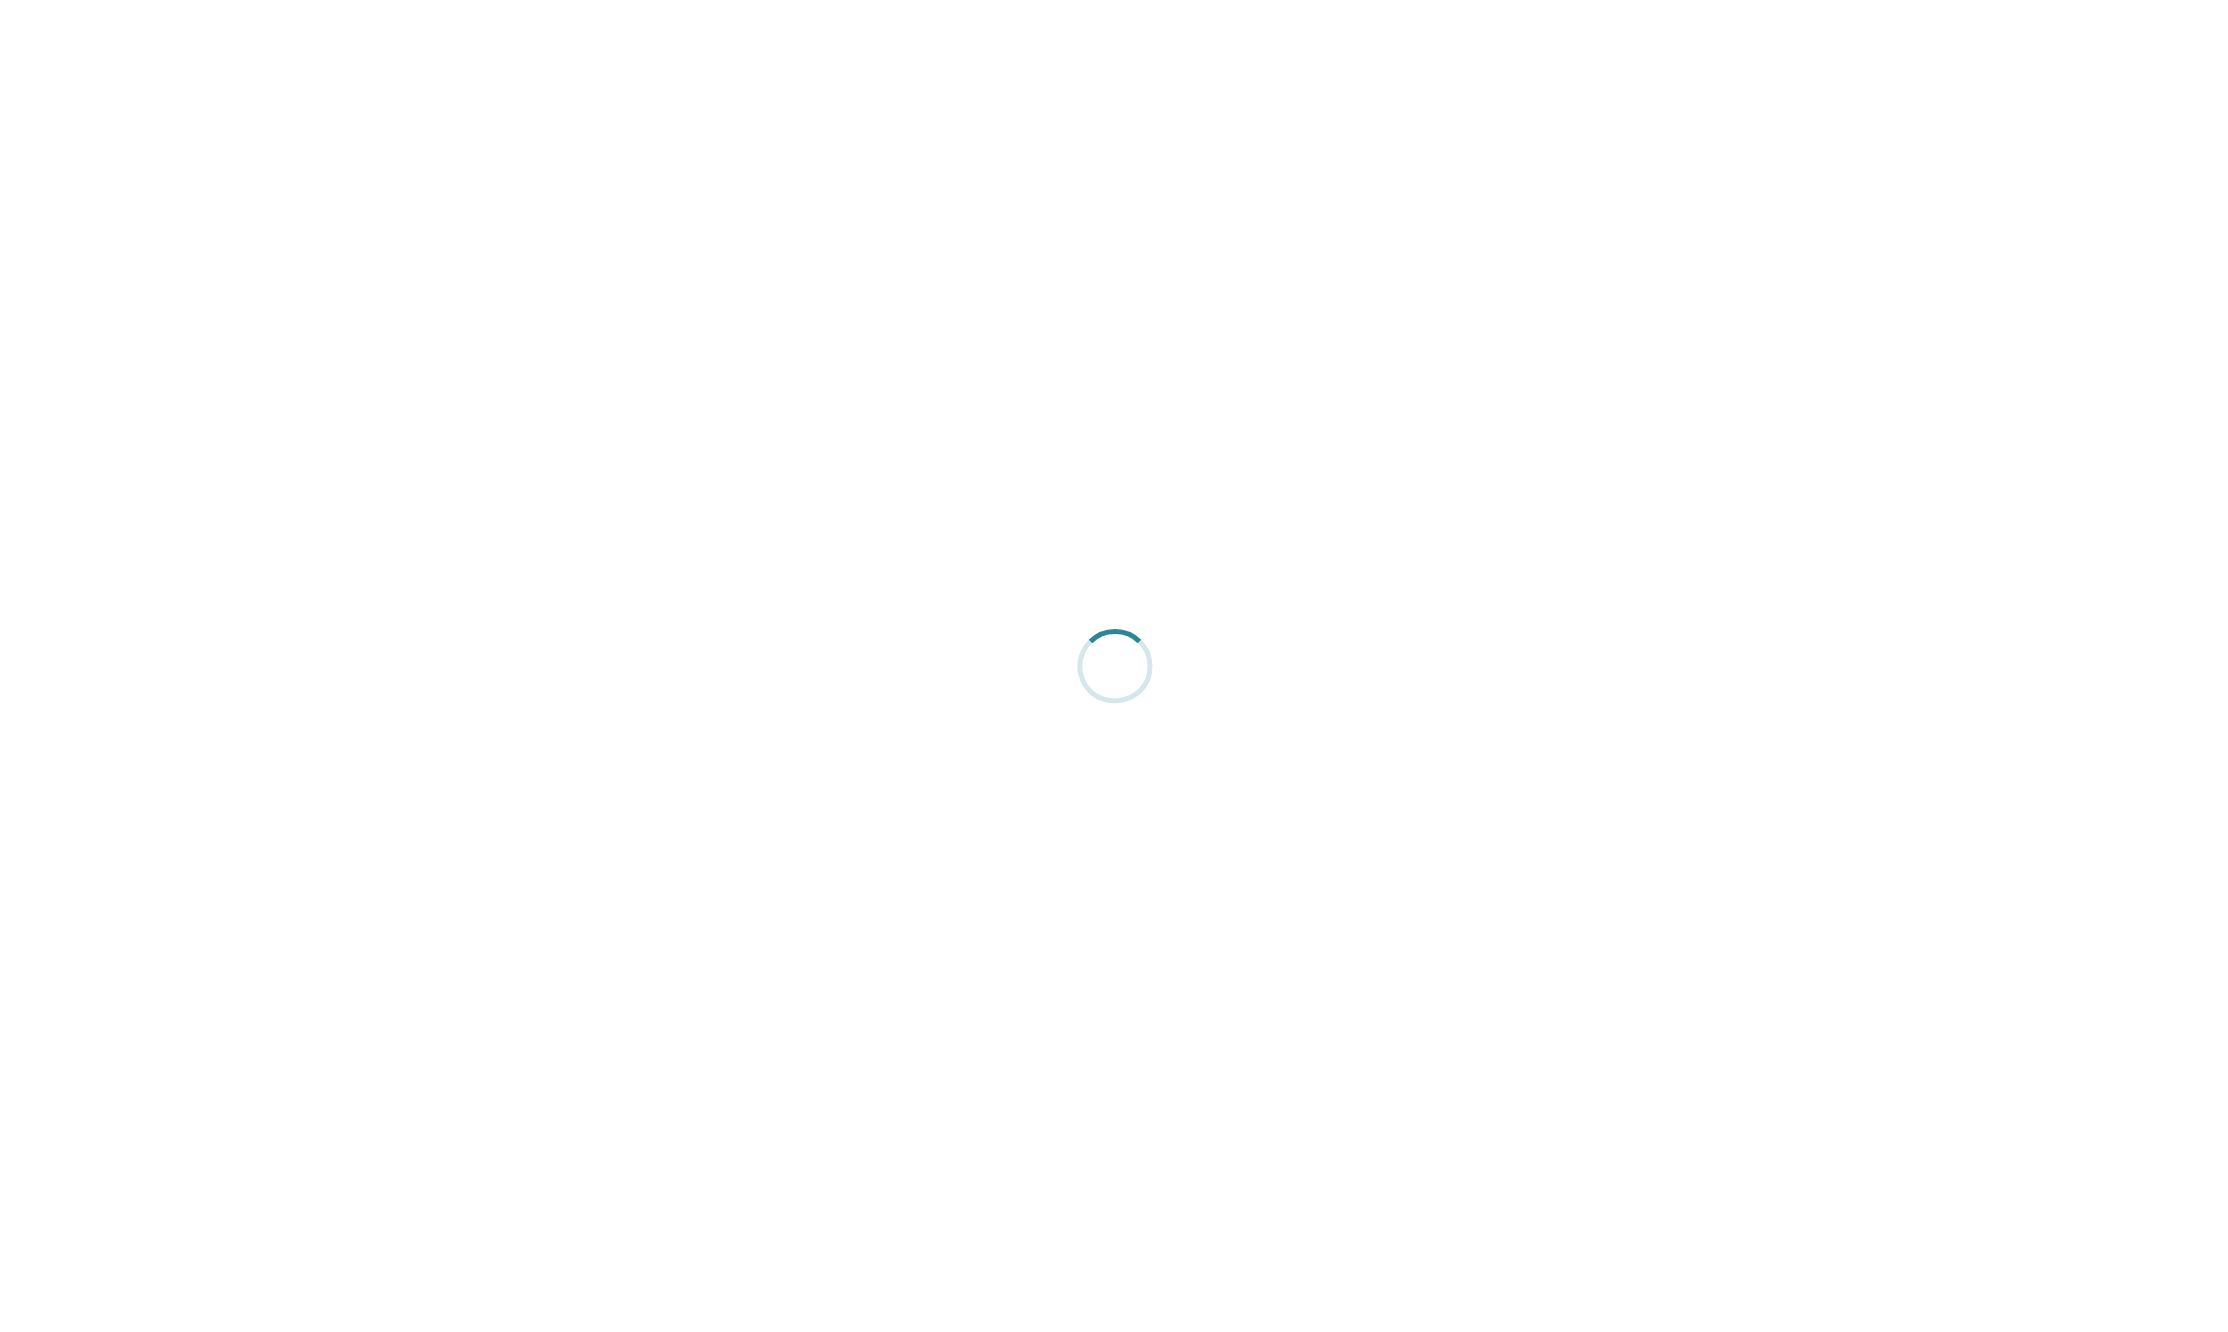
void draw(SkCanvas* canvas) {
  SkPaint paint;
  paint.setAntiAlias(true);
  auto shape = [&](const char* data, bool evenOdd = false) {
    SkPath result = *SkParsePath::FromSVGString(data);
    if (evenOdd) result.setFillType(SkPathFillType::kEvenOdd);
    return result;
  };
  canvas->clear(0xffffffff);
  paint.setStroke(true);
  paint.setStrokeWidth(5);
  paint.setColor(0xff2d8696);
  canvas->drawPath(shape("M1090.5 641.5C1103.5 628 1126.5 628 1139.5 641.5"), paint);
  paint.setColor(0x332d8696);
  canvas->drawPath(shape("M1139.5 641.5C1146.5 648 1150 657 1150 666C1150 708 1089 714 1080.5 673C1078.5 661.5 1082 649.5 1090.5 641.5"), paint);
}
